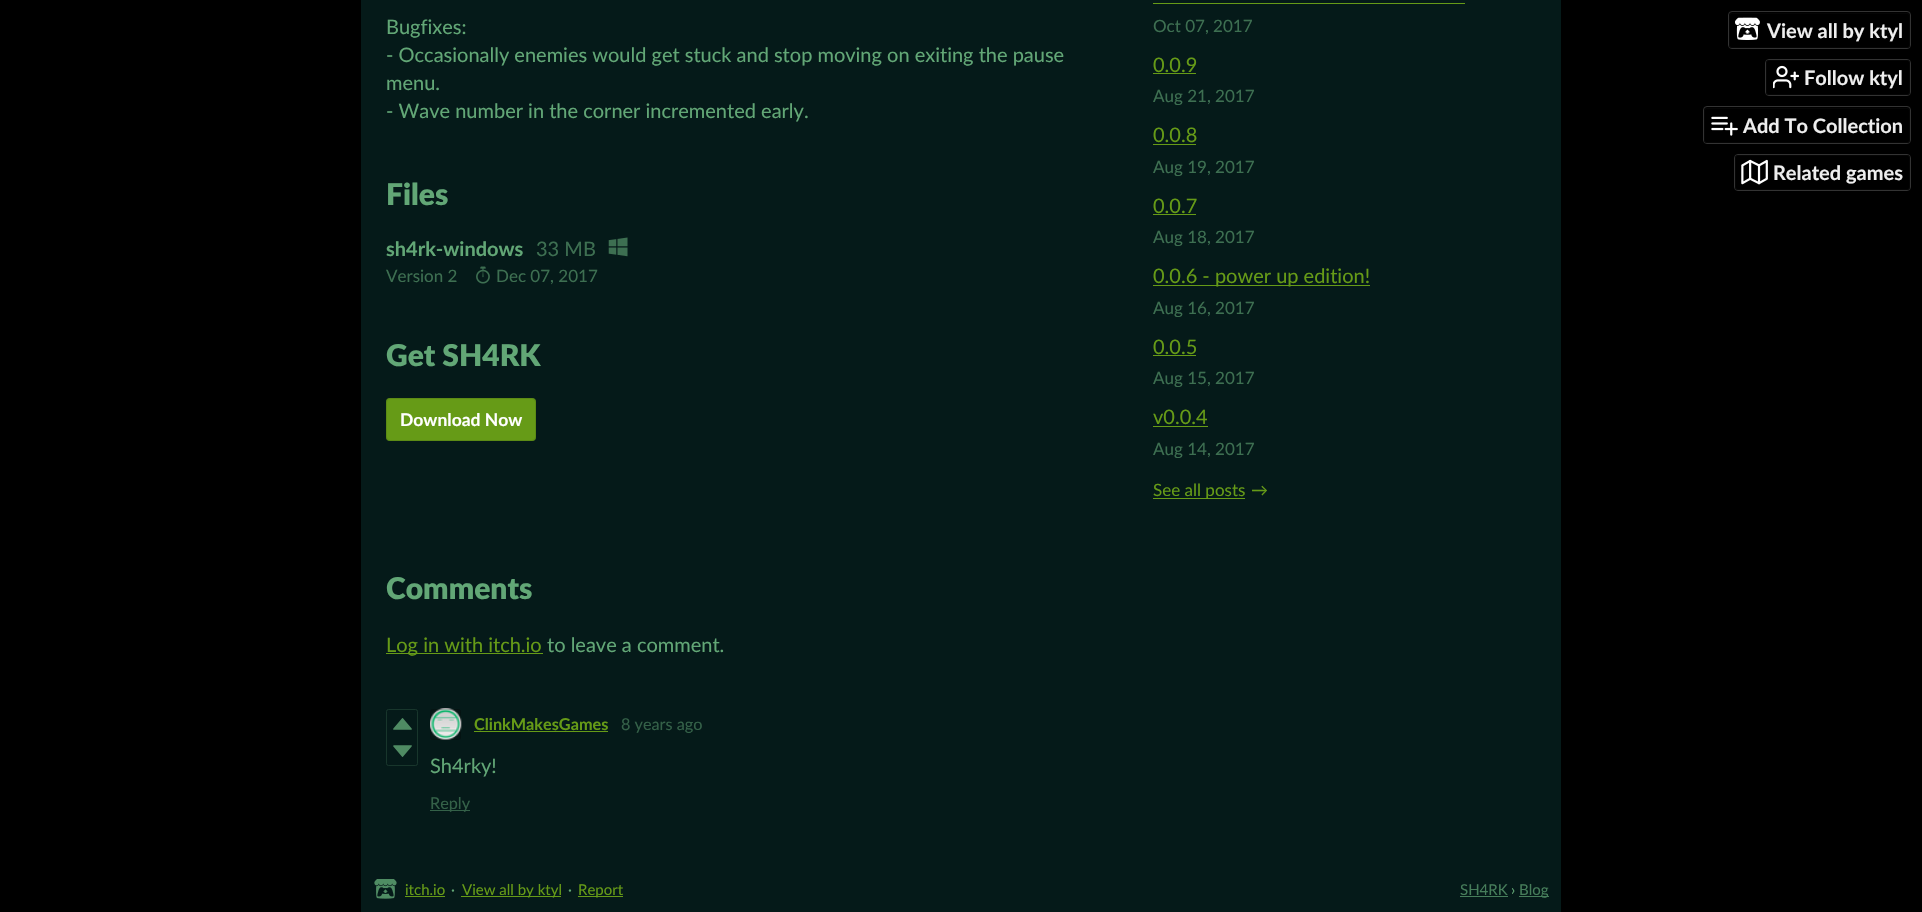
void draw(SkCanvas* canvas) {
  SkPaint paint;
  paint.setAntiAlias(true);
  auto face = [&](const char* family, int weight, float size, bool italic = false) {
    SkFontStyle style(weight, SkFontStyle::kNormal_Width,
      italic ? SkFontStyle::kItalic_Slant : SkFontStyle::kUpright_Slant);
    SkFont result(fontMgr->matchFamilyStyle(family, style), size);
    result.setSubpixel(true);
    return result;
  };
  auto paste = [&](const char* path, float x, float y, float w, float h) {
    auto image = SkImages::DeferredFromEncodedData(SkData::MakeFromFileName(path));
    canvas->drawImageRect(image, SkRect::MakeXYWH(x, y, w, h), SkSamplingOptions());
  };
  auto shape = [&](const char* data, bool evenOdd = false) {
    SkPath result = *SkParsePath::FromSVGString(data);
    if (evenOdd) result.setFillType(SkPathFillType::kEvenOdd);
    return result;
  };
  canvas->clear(0xff000000);
  paint.setColor(0xff051a19);
  canvas->drawRect(SkRect::MakeXYWH(361, 0, 1200, 912), paint);
  paste("img/1.png", 608, 237, 20, 20);
  paste("img/2.png", 476, 266, 14, 18);
  paint.setColor(0xff669b17);
  canvas->drawRoundRect(SkRect::MakeXYWH(386, 398, 150, 43), 4, 4, paint);
  paint.setStroke(true);
  paint.setStrokeWidth(1);
  paint.setColor(0x1a000000);
  canvas->drawRoundRect(SkRect::MakeXYWH(386.5f, 398.5f, 149, 42), 3.5f, 3.5f, paint);
  paint.setStroke(false);
  {
    const struct { float x, y, w, h; SkColor color; } items[] = {
      {1153, 3, 312, 1, 0xff669b17},
      {1153, 73, 43, 1, 0xff669b17},
      {1153, 144, 43, 1, 0xff669b17},
      {1153, 214, 43, 1, 0xff669b17},
      {1153, 285, 217, 1, 0xff669b17},
      {1153, 355, 43, 1, 0xff669b17},
      {1153, 426, 55, 1, 0xff669b17},
      {1153, 498, 92, 1, 0xff669b17},
      {386, 653, 157, 1, 0xff669b17},
    };
    for (auto [x, y, w, h, color] : items) {
      paint.setColor(color);
      canvas->drawRect(SkRect::MakeXYWH(x, y, w, h), paint);
    }
  }
  paint.setStroke(true);
  paint.setColor(0xff18362c);
  canvas->drawRoundRect(SkRect::MakeXYWH(386.5f, 709.5f, 31, 56), 2, 2, paint);
  paint.setStroke(false);
  paint.setColor(0xff4f8b63);
  canvas->drawPath(shape("M394 729L402.5 719L411 729Z"), paint);
  paint.setStroke(true);
  paint.setStrokeWidth(1.7f);
  paint.setStrokeJoin(SkPaint::kRound_Join);
  canvas->drawPath(shape("M394 729L402.5 719L411 729Z"), paint);
  paint.setStroke(false);
  canvas->drawPath(shape("M394 746L402.5 756L411 746Z"), paint);
  paint.setStroke(true);
  canvas->drawPath(shape("M394 746L402.5 756L411 746Z"), paint);
  paint.setStroke(false);
  paint.setColor(0xff041514);
  canvas->drawRoundRect(SkRect::MakeXYWH(430, 709, 31, 31), 2.5f, 2.5f, paint);
  paste("img/3.png", 430, 708, 32, 32);
  paint.setStroke(true);
  paint.setStrokeWidth(1);
  paint.setStrokeJoin(SkPaint::kMiter_Join);
  paint.setColor(0x1a000000);
  canvas->drawRoundRect(SkRect::MakeXYWH(430.5f, 709.5f, 30, 30), 2, 2, paint);
  paint.setStroke(false);
  paint.setColor(0xff669b17);
  canvas->drawRect(SkRect::MakeXYWH(474, 731, 134, 1), paint);
  paint.setColor(0xff346148);
  canvas->drawRect(SkRect::MakeXYWH(430, 810, 40, 1), paint);
  paste("img/4.png", 374, 879, 23, 20);
  {
    const struct { float x, y, w, h; SkColor color; } items[] = {
      {405, 896, 40, 1, 0xff669b17},
      {461, 896, 100, 1, 0xff669b17},
      {578, 896, 45, 1, 0xff669b17},
      {1460, 896, 48, 1, 0xff467d5a},
      {1519, 896, 30, 1, 0xff467d5a},
    };
    for (auto [x, y, w, h, color] : items) {
      paint.setColor(color);
      canvas->drawRect(SkRect::MakeXYWH(x, y, w, h), paint);
    }
  }
  paint.setStroke(true);
  paint.setColor(0xff333333);
  canvas->drawRoundRect(SkRect::MakeXYWH(1728.5f, 11.5f, 182, 37), 3.5f, 3.5f, paint);
  paint.setStroke(false);
  paint.setColor(0x99000000);
  canvas->drawRoundRect(SkRect::MakeXYWH(1729, 13, 181, 35), 2.5f, 2.5f, paint);
  paint.setStroke(true);
  paint.setColor(0x800a0a0a);
  canvas->drawRoundRect(SkRect::MakeXYWH(1729.5f, 13.5f, 180, 34), 2, 2, paint);
  paste("img/5.png", 1735, 17, 25, 23);
  paint.setColor(0xff333333);
  canvas->drawRoundRect(SkRect::MakeXYWH(1765.5f, 59.5f, 145, 36), 3.5f, 3.5f, paint);
  paint.setStroke(false);
  paint.setColor(0x99000000);
  canvas->drawRoundRect(SkRect::MakeXYWH(1766, 60, 144, 35), 2.5f, 2.5f, paint);
  paint.setStroke(true);
  paint.setColor(0x800a0a0a);
  canvas->drawRoundRect(SkRect::MakeXYWH(1766.5f, 60.5f, 143, 34), 2, 2, paint);
  paste("img/6.png", 1773, 65, 26, 24);
  paint.setColor(0xff333333);
  canvas->drawRoundRect(SkRect::MakeXYWH(1703.5f, 106.5f, 207, 37), 3.5f, 3.5f, paint);
  paint.setStroke(false);
  paint.setColor(0x99000000);
  canvas->drawRoundRect(SkRect::MakeXYWH(1704, 108, 206, 35), 2.5f, 2.5f, paint);
  paint.setStroke(true);
  paint.setColor(0x800a0a0a);
  canvas->drawRoundRect(SkRect::MakeXYWH(1704.5f, 108.5f, 205, 34), 2, 2, paint);
  paste("img/7.png", 1711, 116, 27, 20);
  paint.setColor(0xff333333);
  canvas->drawRoundRect(SkRect::MakeXYWH(1734.5f, 154.5f, 176, 36), 3.5f, 3.5f, paint);
  paint.setStroke(false);
  paint.setColor(0x99000000);
  canvas->drawRoundRect(SkRect::MakeXYWH(1735, 155, 175, 35), 2.5f, 2.5f, paint);
  paint.setStroke(true);
  paint.setColor(0x800a0a0a);
  canvas->drawRoundRect(SkRect::MakeXYWH(1735.5f, 155.5f, 174, 34), 2, 2, paint);
  paste("img/8.png", 1741, 159, 27, 26);
  auto f0 = face("Lato", 400, 20);
  paint.setStroke(false);
  paint.setColor(0xff62a776);
  {
    const struct { const char* s; float x, y; } items[] = {
      {"Bugfixes:", 386, 34},
      {"- Occasionally enemies would get stuck and stop moving on exiting the pause", 386, 62},
      {"menu.", 386, 90},
      {"- Wave number in the corner incremented early.", 386, 118},
    };
    for (auto [s, x, y] : items) {
      canvas->drawString(s, x, y, f0, paint);
    }
  }
  auto f1 = face("Lato", 900, 30);
  canvas->drawString("Files", 386, 205, f1, paint);
  auto f2 = face("Lato", 700, 20);
  canvas->drawString("sh4rk-windows", 386, 256, f2, paint);
  paint.setColor(0xff3d6f51);
  canvas->drawString("33 MB", 536, 256, f0, paint);
  auto f3 = face("Lato", 400, 17);
  canvas->drawString("Version 2", 386, 282, f3, paint);
  canvas->drawString("Dec 07, 2017", 496, 282, f3, paint);
  paint.setColor(0xff62a776);
  canvas->drawString("Get SH4RK", 386, 366, f1, paint);
  auto f4 = face("Lato", 700, 17.5f);
  paint.setColor(0xffffffff);
  canvas->drawString("Download Now", 400, 426, f4, paint);
  paint.setColor(0xff3d6f51);
  canvas->drawString("Oct 07, 2017", 1153, 32, f3, paint);
  paint.setColor(0xff669b17);
  canvas->drawString("0.0.9", 1153, 72, f0, paint);
  paint.setColor(0xff3d6f51);
  canvas->drawString("Aug 21, 2017", 1153, 102, f3, paint);
  paint.setColor(0xff669b17);
  canvas->drawString("0.0.8", 1153, 142, f0, paint);
  paint.setColor(0xff3d6f51);
  canvas->drawString("Aug 19, 2017", 1153, 173, f3, paint);
  paint.setColor(0xff669b17);
  canvas->drawString("0.0.7", 1153, 213, f0, paint);
  paint.setColor(0xff3d6f51);
  canvas->drawString("Aug 18, 2017", 1153, 243, f3, paint);
  paint.setColor(0xff669b17);
  canvas->drawString("0.0.6 - power up edition!", 1153, 283, f0, paint);
  paint.setColor(0xff3d6f51);
  canvas->drawString("Aug 16, 2017", 1153, 314, f3, paint);
  paint.setColor(0xff669b17);
  canvas->drawString("0.0.5", 1153, 354, f0, paint);
  paint.setColor(0xff3d6f51);
  canvas->drawString("Aug 15, 2017", 1153, 384, f3, paint);
  paint.setColor(0xff669b17);
  canvas->drawString("v0.0.4", 1153, 424, f0, paint);
  paint.setColor(0xff3d6f51);
  canvas->drawString("Aug 14, 2017", 1153, 455, f3, paint);
  paint.setColor(0xff669b17);
  canvas->drawString("See all posts", 1153, 496, f3, paint);
  canvas->drawString("→", 1251, 496, f3, paint);
  paint.setColor(0xff62a776);
  canvas->drawString("Comments", 386, 599, f1, paint);
  paint.setColor(0xff669b17);
  canvas->drawString("Log in with itch.io", 386, 652, f0, paint);
  paint.setColor(0xff62a776);
  canvas->drawString("to leave a comment.", 547, 652, f0, paint);
  auto f5 = face("Lato", 700, 16.25f);
  paint.setColor(0xff669b17);
  canvas->drawString("ClinkMakesGames", 474, 730, f5, paint);
  auto f6 = face("Lato", 400, 16.25f);
  paint.setColor(0xff346148);
  canvas->drawString("8 years ago", 621, 730, f6, paint);
  paint.setColor(0xff62a776);
  canvas->drawString("Sh4rky!", 430, 773, f0, paint);
  paint.setColor(0xff346148);
  canvas->drawString("Reply", 430, 809, f6, paint);
  auto f7 = face("Lato", 400, 15);
  paint.setColor(0xff669b17);
  canvas->drawString("itch.io", 405, 895, f7, paint);
  paint.setColor(0xff62a776);
  canvas->drawString("·", 451, 895, f7, paint);
  paint.setColor(0xff669b17);
  canvas->drawString("View all by ktyl", 462, 895, f7, paint);
  paint.setColor(0xff62a776);
  canvas->drawString("·", 568, 895, f7, paint);
  paint.setColor(0xff669b17);
  canvas->drawString("Report", 578, 895, f7, paint);
  paint.setColor(0xff467d5a);
  canvas->drawString("SH4RK", 1460, 895, f7, paint);
  paint.setColor(0xff62a776);
  canvas->drawString("›", 1511, 895, f7, paint);
  paint.setColor(0xff467d5a);
  canvas->drawString("Blog", 1519, 895, f7, paint);
  paint.setColor(0xffeeeeee);
  {
    const struct { const char* s; float x, y; } items[] = {
      {"View all by ktyl", 1767, 38},
      {"Follow ktyl", 1804, 85},
      {"Add To Collection", 1743, 133},
      {"Related games", 1773, 180},
    };
    for (auto [s, x, y] : items) {
      canvas->drawString(s, x, y, f2, paint);
    }
  }
}
